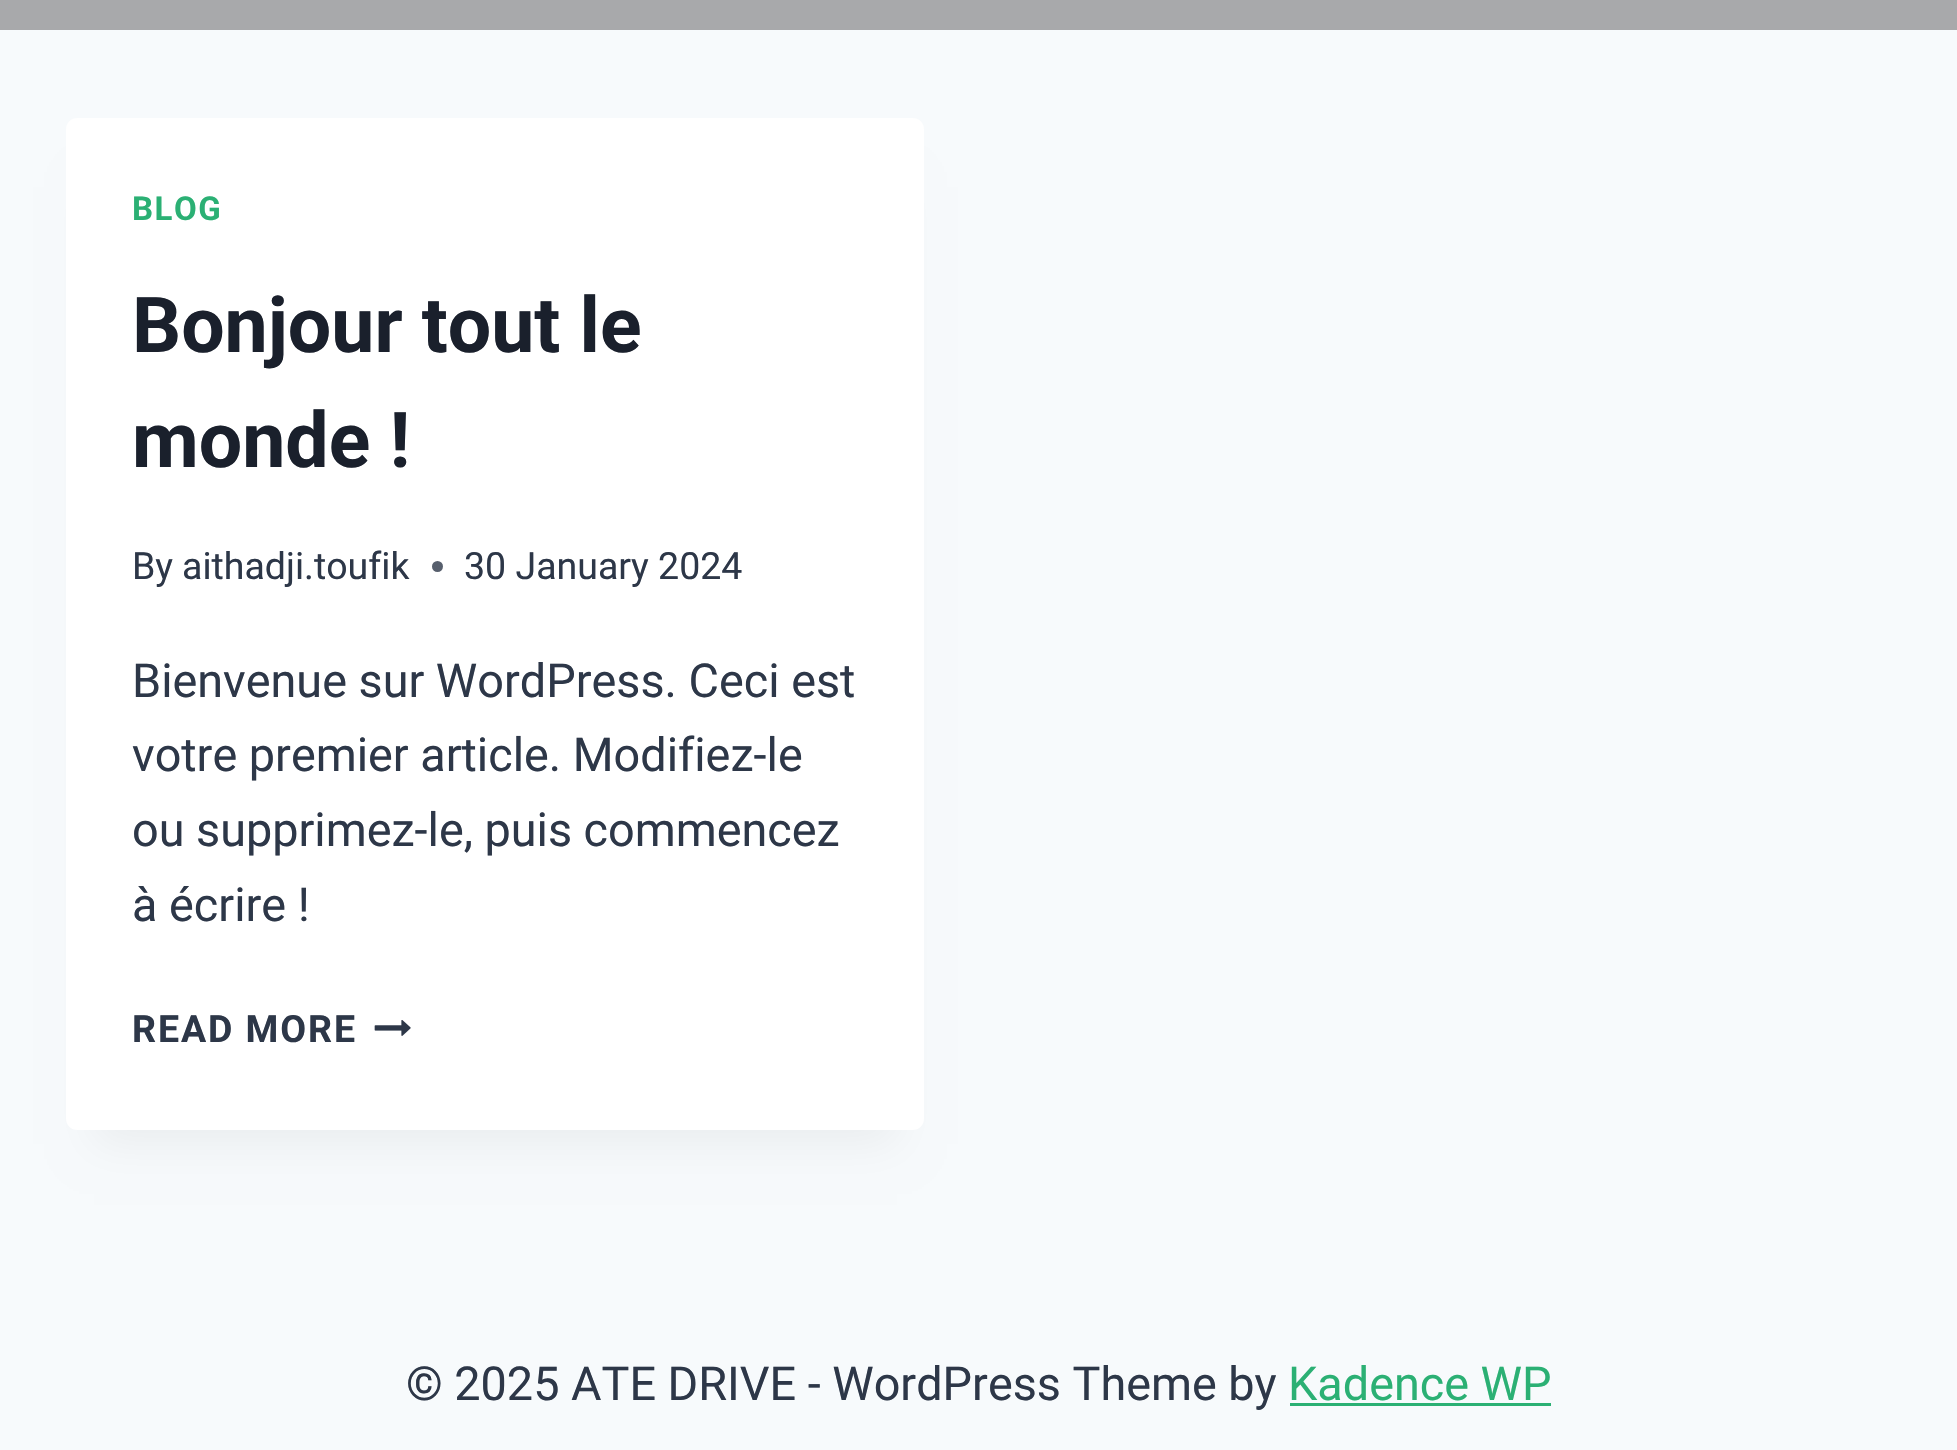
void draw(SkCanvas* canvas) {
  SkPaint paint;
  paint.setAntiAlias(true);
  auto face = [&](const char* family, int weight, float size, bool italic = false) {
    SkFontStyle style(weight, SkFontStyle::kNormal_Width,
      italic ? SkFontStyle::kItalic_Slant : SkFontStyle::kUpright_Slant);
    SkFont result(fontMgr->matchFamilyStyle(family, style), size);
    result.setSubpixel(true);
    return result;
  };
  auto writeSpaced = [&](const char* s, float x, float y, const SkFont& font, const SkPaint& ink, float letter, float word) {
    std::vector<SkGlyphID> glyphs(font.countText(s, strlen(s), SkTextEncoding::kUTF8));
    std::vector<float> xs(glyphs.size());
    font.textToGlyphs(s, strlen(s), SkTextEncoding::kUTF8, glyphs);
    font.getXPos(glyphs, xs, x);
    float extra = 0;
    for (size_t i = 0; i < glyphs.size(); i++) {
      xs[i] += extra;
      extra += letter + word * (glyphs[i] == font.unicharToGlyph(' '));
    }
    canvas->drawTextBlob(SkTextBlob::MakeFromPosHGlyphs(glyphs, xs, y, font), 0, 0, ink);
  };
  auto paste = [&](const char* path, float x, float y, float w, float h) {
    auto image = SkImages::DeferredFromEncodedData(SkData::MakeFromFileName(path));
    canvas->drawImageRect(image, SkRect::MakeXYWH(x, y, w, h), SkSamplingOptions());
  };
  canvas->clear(0xfff7fafc);
  paint.setColor(0xffa8a9ab);
  canvas->drawRect(SkRect::MakeXYWH(0, 0, 1957, 30), paint);
  paint.setColor(0x0d000000);
  paint.setMaskFilter(SkMaskFilter::MakeBlur(kNormal_SkBlurStyle, 20.5f));
  canvas->drawRect(SkRect::MakeXYWH(94, 187, 803, 957), paint);
  paint.setMaskFilter(nullptr);
  paint.setColor(0xffffffff);
  canvas->drawRoundRect(SkRect::MakeXYWH(66, 118, 858, 1012), 11, 11, paint);
  paint.setColor(0xff575f6d);
  canvas->drawCircle(437.5f, 566.5f, 5.5f, paint);
  paste("img/1.png", 374, 1020, 37, 16);
  paint.setColor(0xff2bb074);
  canvas->drawRect(SkRect::MakeXYWH(1290, 1403, 261, 3), paint);
  auto f0 = face("Roboto", 700, 33);
  writeSpaced("BLOG", 132, 220, f0, paint, 1.5f, 0);
  auto f1 = face("Roboto", 700, 77);
  paint.setColor(0xff1a202c);
  canvas->drawString("Bonjour tout le", 132, 352, f1, paint);
  canvas->drawString("monde !", 132, 467, f1, paint);
  auto f2 = face("Roboto", 400, 37.5f);
  paint.setColor(0xff2d3748);
  {
    const struct { const char* s; float x, y; } items[] = {
      {"By", 132, 579},
      {"aithadji.toufik", 182, 579},
      {"30 January 2024", 464, 579},
    };
    for (auto [s, x, y] : items) {
      canvas->drawString(s, x, y, f2, paint);
    }
  }
  auto f3 = face("Roboto", 400, 46.75f);
  {
    const struct { const char* s; float x, y; } items[] = {
      {"Bienvenue sur WordPress. Ceci est", 132, 697},
      {"votre premier article. Modifiez-le", 132, 771},
      {"ou supprimez-le, puis commencez", 132, 846},
      {"à écrire !", 132, 921},
    };
    for (auto [s, x, y] : items) {
      canvas->drawString(s, x, y, f3, paint);
    }
  }
  auto f4 = face("Roboto", 700, 37.5f);
  writeSpaced("READ MORE", 132, 1042, f4, paint, 1.9f, 0);
  canvas->drawString("© 2025 ATE DRIVE - WordPress Theme by", 406, 1400, f3, paint);
  paint.setColor(0xff2bb074);
  canvas->drawString("Kadence WP", 1288, 1400, f3, paint);
}
